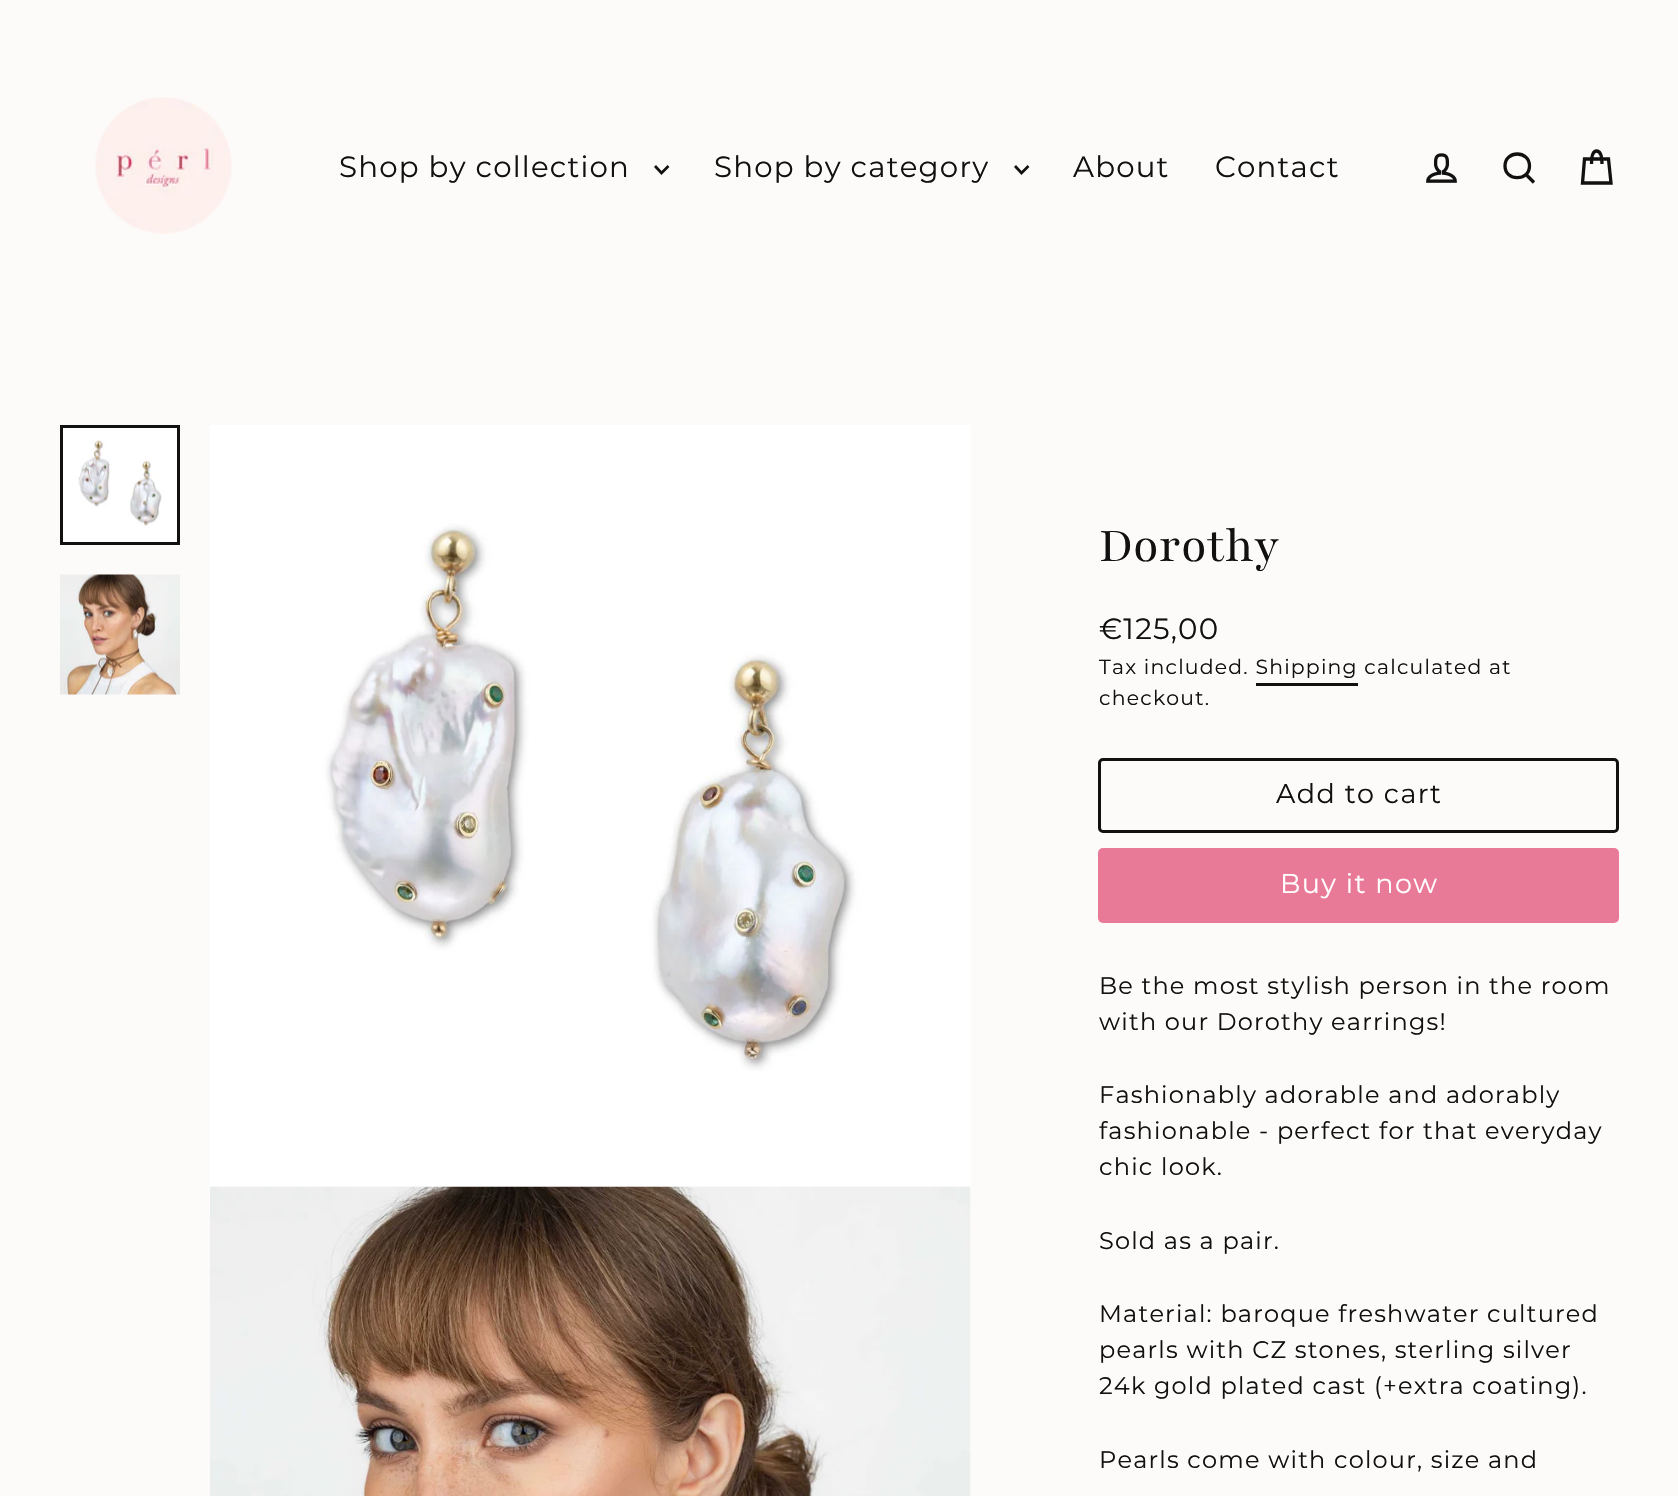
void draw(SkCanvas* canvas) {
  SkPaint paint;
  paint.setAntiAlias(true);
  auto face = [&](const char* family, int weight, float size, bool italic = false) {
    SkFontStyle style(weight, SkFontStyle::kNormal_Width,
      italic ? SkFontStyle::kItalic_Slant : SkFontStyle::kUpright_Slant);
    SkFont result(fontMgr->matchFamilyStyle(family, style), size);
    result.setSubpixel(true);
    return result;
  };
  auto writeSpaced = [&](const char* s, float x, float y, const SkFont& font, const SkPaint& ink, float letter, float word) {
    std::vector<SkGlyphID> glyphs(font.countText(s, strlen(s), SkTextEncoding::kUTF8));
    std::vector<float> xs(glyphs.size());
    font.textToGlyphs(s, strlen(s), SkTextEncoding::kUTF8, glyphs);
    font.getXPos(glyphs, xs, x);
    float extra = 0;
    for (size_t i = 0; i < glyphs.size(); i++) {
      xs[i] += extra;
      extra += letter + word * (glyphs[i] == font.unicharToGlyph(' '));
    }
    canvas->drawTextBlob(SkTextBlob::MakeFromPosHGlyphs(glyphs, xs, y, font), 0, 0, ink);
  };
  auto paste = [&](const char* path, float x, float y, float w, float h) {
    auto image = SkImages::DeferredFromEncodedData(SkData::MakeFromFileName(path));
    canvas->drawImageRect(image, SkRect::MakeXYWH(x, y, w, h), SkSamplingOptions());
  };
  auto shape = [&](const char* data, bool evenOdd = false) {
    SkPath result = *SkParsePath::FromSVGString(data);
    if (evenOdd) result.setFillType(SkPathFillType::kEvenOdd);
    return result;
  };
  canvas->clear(0xfffdfbfa);
  paste("img/1.png", 95, 97, 137, 137);
  paint.setStroke(true);
  paint.setStrokeWidth(2.7f);
  paint.setColor(0xff111111);
  canvas->drawPath(shape("M655 166L661.5 173L668.5 166"), paint);
  canvas->drawPath(shape("M1015 166L1021.5 173L1028.5 166"), paint);
  paste("img/2.png", 1426, 153, 31, 30);
  paint.setStrokeWidth(3.3f);
  canvas->drawPath(shape("M1529.5 166C1529.5 181.5 1505 181.5 1505 166C1505 150 1529.5 150 1529.5 166ZM1534 182.5L1526 174.5"), paint);
  canvas->drawPath(shape("M1591.5 164C1591.5 153.5 1593.5 151 1596.5 151C1599.5 151 1602 153.5 1602 164M1584.5 159H1608.5L1611 183H1582.5Z"), paint);
  paste("img/3.png", 63, 428, 114, 114);
  paint.setStrokeWidth(3);
  canvas->drawRect(SkRect::MakeXYWH(61.5f, 426.5f, 117, 117), paint);
  paste("img/4.png", 60, 574, 120, 121);
  paste("img/5.png", 210, 425, 761, 761);
  paste("img/6.png", 210, 1186, 761, 310);
  paint.setStroke(false);
  canvas->drawRect(SkRect::MakeXYWH(1256, 683, 102, 3), paint);
  paint.setStroke(true);
  canvas->drawRoundRect(SkRect::MakeXYWH(1099.5f, 759.5f, 518, 72), 3.5f, 3.5f, paint);
  paint.setStroke(false);
  paint.setColor(0xffe97a97);
  canvas->drawRoundRect(SkRect::MakeXYWH(1098, 848, 521, 75), 5, 5, paint);
  auto f0 = face("Montserrat", 400, 29.25f);
  paint.setColor(0xff111111);
  {
    const struct { const char* s; float x, y; } items[] = {
      {"Shop by collection", 339, 177},
      {"Shop by category", 714, 177},
      {"About", 1073, 177},
      {"Contact", 1215, 177},
    };
    for (auto [s, x, y] : items) {
      writeSpaced(s, x, y, f0, paint, 1.2f, 0);
    }
  }
  auto f1 = face("Playfair", 400, 52.5f);
  canvas->drawString("Dorothy", 1099, 561, f1, paint);
  writeSpaced("€125,00", 1099, 639, f0, paint, 1.2f, 0);
  auto f2 = face("Montserrat", 400, 20.4f);
  writeSpaced("Tax included. Shipping calculated at", 1099, 674, f2, paint, 1.2f, 0);
  writeSpaced("checkout.", 1099, 705, f2, paint, 1.2f, 0);
  auto f3 = face("Montserrat", 400, 27);
  writeSpaced("Add to cart", 1276, 803, f3, paint, 1.4f, 0);
  paint.setColor(0xffffffff);
  writeSpaced("Buy it now", 1280, 893, f3, paint, 1.4f, 0);
  auto f4 = face("Montserrat", 400, 24);
  paint.setColor(0xff111111);
  {
    const struct { const char* s; float x, y; } items[] = {
      {"Be the most stylish person in the room", 1099, 994},
      {"with our Dorothy earrings!", 1099, 1030},
      {"Fashionably adorable and adorably", 1099, 1103},
      {"fashionable - perfect for that everyday", 1099, 1139},
      {"chic look.", 1099, 1175},
      {"Sold as a pair.", 1099, 1249},
      {"Material: baroque freshwater cultured", 1099, 1322},
      {"pearls with CZ stones, sterling silver", 1099, 1358},
      {"24k gold plated cast (+extra coating).", 1099, 1394},
      {"Pearls come with colour, size and", 1099, 1468},
    };
    for (auto [s, x, y] : items) {
      writeSpaced(s, x, y, f4, paint, 1.2f, 0);
    }
  }
}
